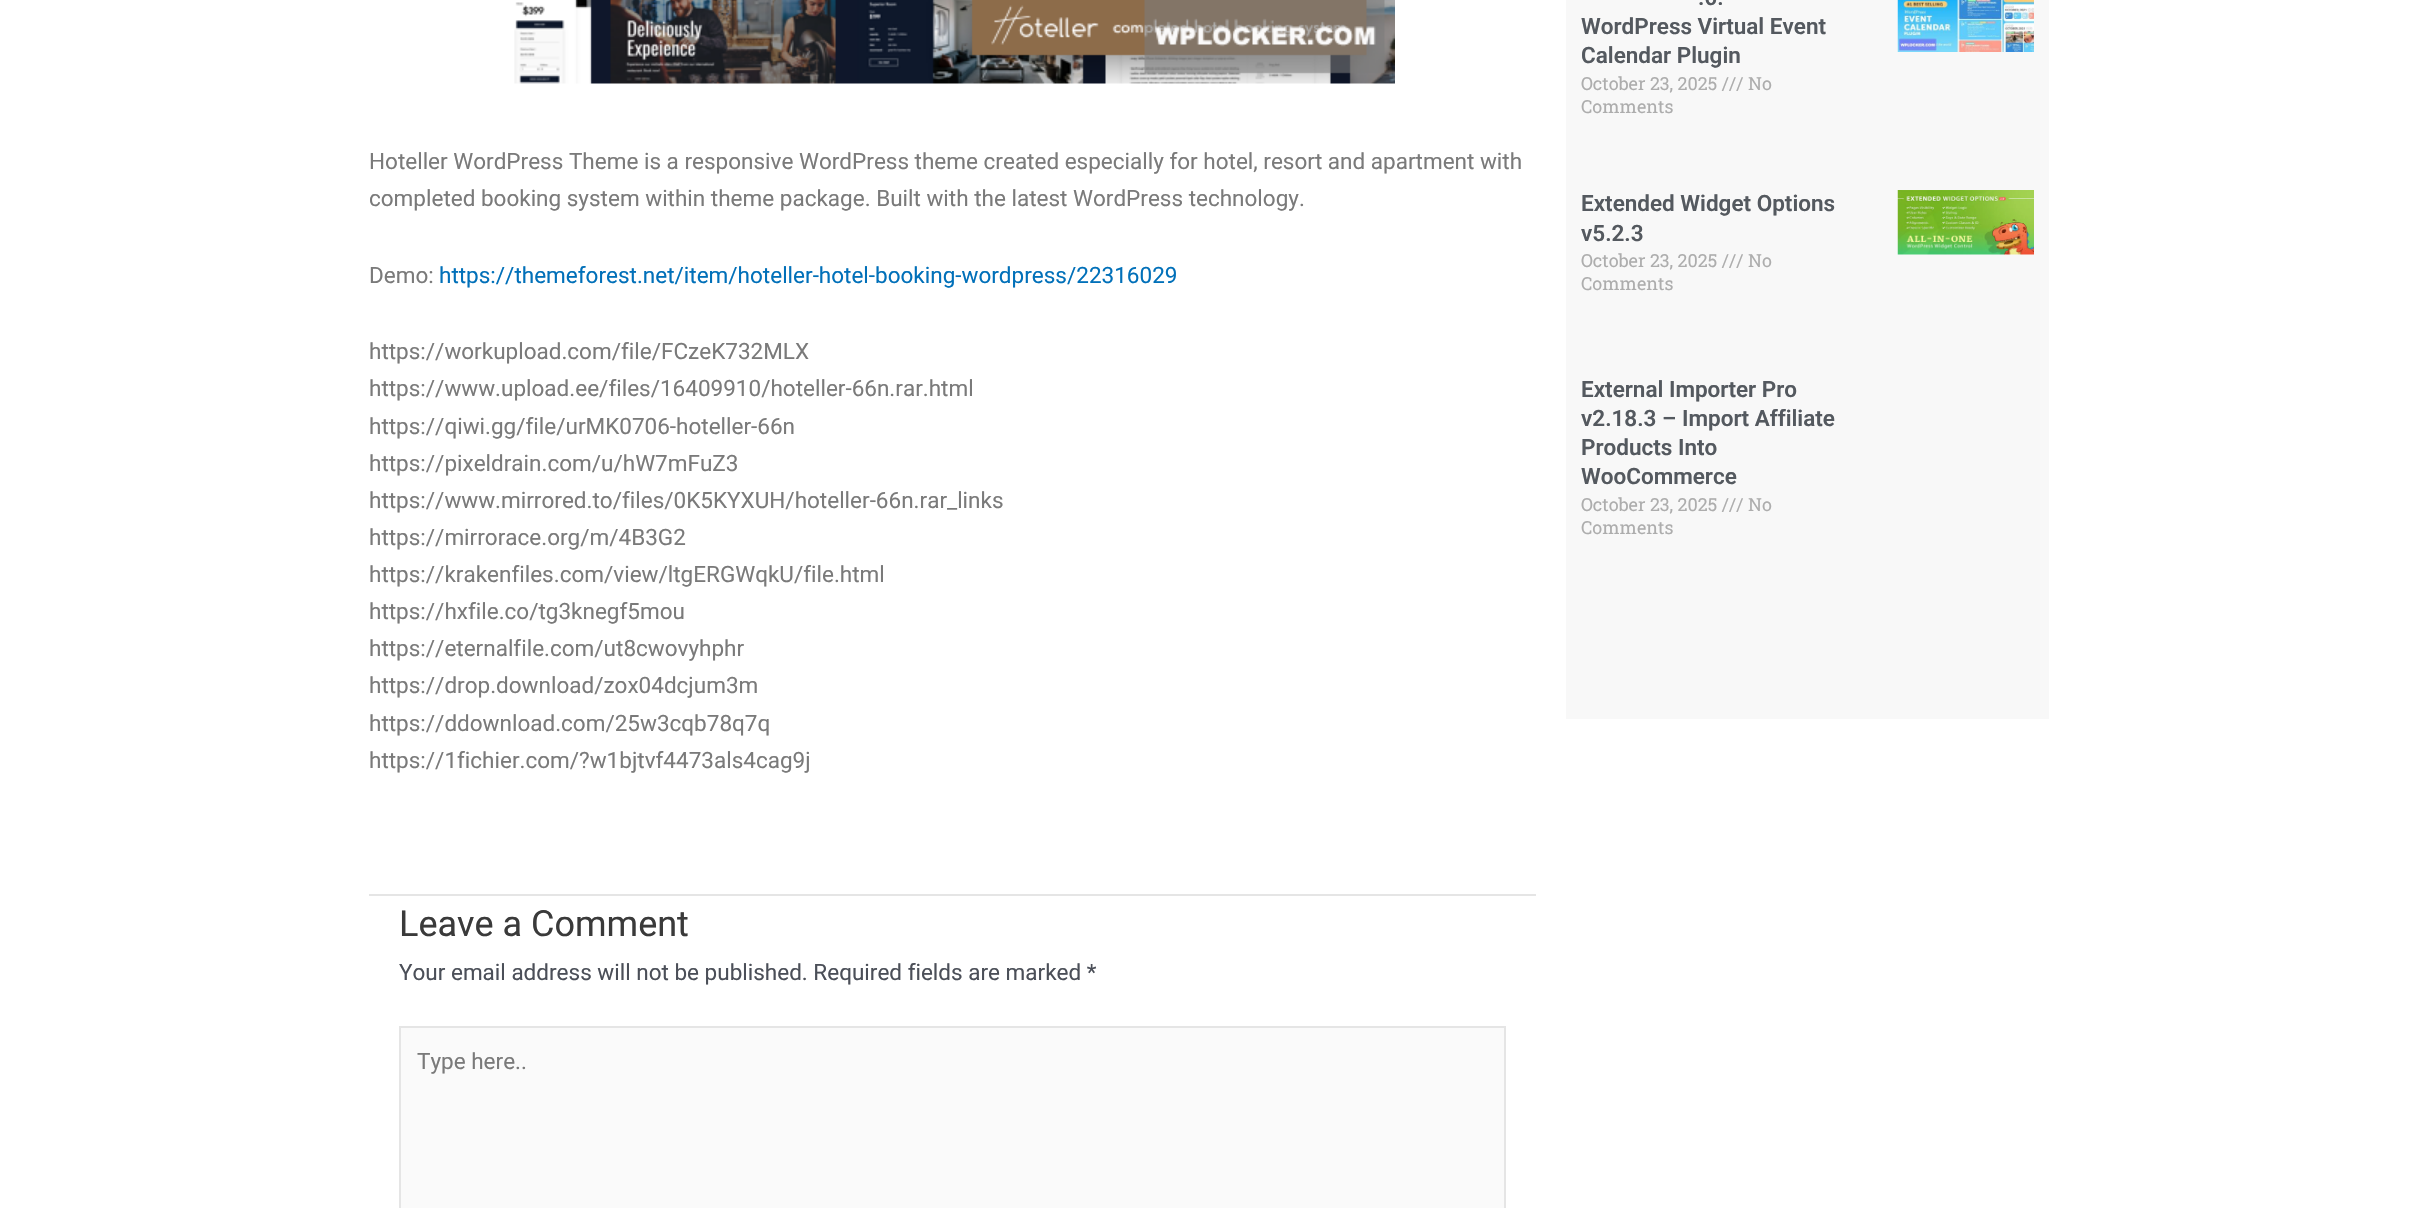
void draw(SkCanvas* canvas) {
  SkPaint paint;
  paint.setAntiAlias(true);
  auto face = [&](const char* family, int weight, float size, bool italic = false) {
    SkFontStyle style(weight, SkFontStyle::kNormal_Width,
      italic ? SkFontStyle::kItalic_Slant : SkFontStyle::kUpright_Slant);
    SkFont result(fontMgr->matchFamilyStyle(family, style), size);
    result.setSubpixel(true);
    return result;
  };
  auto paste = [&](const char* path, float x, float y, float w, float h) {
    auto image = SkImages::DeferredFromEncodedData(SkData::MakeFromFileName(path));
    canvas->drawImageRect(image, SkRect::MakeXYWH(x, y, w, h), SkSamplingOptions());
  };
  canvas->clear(0xffffffff);
  paste("img/1.png", 514, 0, 881, 84);
  paint.setColor(0xffe5e5e5);
  canvas->drawRect(SkRect::MakeXYWH(369, 894, 1167, 2), paint);
  paint.setColor(0xfffafafa);
  canvas->drawRect(SkRect::MakeXYWH(400, 1027, 1105, 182), paint);
  paint.setStroke(true);
  paint.setStrokeWidth(2);
  paint.setColor(0xffe5e5e5);
  canvas->drawRect(SkRect::MakeXYWH(400, 1027, 1105, 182), paint);
  paint.setStroke(false);
  paint.setColor(0xfff8f8f8);
  canvas->drawRect(SkRect::MakeXYWH(1566, 0, 483, 719), paint);
  paste("img/2.png", 1897, 0, 137, 52);
  paste("img/3.png", 1897, 190, 137, 65);
  auto f0 = face("Roboto", 400, 22.5f);
  paint.setColor(0xff7a7a7a);
  {
    const struct { const char* s; float x, y; } items[] = {
      {"Hoteller WordPress Theme is a responsive WordPress theme created especially for hotel, resort and apartment with", 369, 169},
      {"completed booking system within theme package. Built with the latest WordPress technology.", 369, 206},
      {"Demo:", 369, 283},
    };
    for (auto [s, x, y] : items) {
      canvas->drawString(s, x, y, f0, paint);
    }
  }
  paint.setColor(0xff0170b9);
  canvas->drawString("https://themeforest.net/item/hoteller-hotel-booking-wordpress/22316029", 439, 283, f0, paint);
  paint.setColor(0xff7a7a7a);
  {
    const struct { const char* s; float x, y; } items[] = {
      {"https://workupload.com/file/FCzeK732MLX", 369, 359},
      {"https://www.upload.ee/files/16409910/hoteller-66n.rar.html", 369, 396},
      {"https://qiwi.gg/file/urMK0706-hoteller-66n", 369, 434},
      {"https://pixeldrain.com/u/hW7mFuZ3", 369, 471},
      {"https://www.mirrored.to/files/0K5KYXUH/hoteller-66n.rar_links", 369, 508},
      {"https://mirrorace.org/m/4B3G2", 369, 545},
      {"https://krakenfiles.com/view/ltgERGWqkU/file.html", 369, 582},
      {"https://hxfile.co/tg3knegf5mou", 369, 619},
      {"https://eternalfile.com/ut8cwovyhphr", 369, 656},
      {"https://drop.download/zox04dcjum3m", 369, 693},
      {"https://ddownload.com/25w3cqb78q7q", 369, 731},
      {"https://1fichier.com/?w1bjtvf4473als4cag9j", 369, 768},
    };
    for (auto [s, x, y] : items) {
      canvas->drawString(s, x, y, f0, paint);
    }
  }
  auto f1 = face("Roboto", 400, 36);
  paint.setColor(0xff3a3a3a);
  canvas->drawString("Leave a Comment", 399, 936, f1, paint);
  paint.setColor(0xff4b4f58);
  canvas->drawString("Your email address will not be published. Required fields are marked *", 399, 980, f0, paint);
  paint.setColor(0xff7a7a7a);
  canvas->drawString("Type here..", 417, 1069, f0, paint);
  auto f2 = face("Roboto", 600, 22.5f);
  paint.setColor(0xff54595f);
  {
    const struct { const char* s; float x, y; } items[] = {
      {".0.", 1698, 5},
      {"WordPress Virtual Event", 1581, 34},
      {"Calendar Plugin", 1581, 63},
    };
    for (auto [s, x, y] : items) {
      canvas->drawString(s, x, y, f2, paint);
    }
  }
  auto f3 = face("Roboto Slab", 400, 18);
  paint.setColor(0xffadadad);
  canvas->drawString("October 23, 2025 /// No", 1581, 90, f3, paint);
  canvas->drawString("Comments", 1581, 113, f3, paint);
  paint.setColor(0xff54595f);
  canvas->drawString("Extended Widget Options", 1581, 211, f2, paint);
  canvas->drawString("v5.2.3", 1581, 241, f2, paint);
  paint.setColor(0xffadadad);
  canvas->drawString("October 23, 2025 /// No", 1581, 267, f3, paint);
  canvas->drawString("Comments", 1581, 290, f3, paint);
  paint.setColor(0xff54595f);
  {
    const struct { const char* s; float x, y; } items[] = {
      {"External Importer Pro", 1581, 397},
      {"v2.18.3 – Import Affiliate", 1581, 426},
      {"Products Into", 1581, 455},
      {"WooCommerce", 1581, 484},
    };
    for (auto [s, x, y] : items) {
      canvas->drawString(s, x, y, f2, paint);
    }
  }
  paint.setColor(0xffadadad);
  canvas->drawString("October 23, 2025 /// No", 1581, 511, f3, paint);
  canvas->drawString("Comments", 1581, 534, f3, paint);
}
